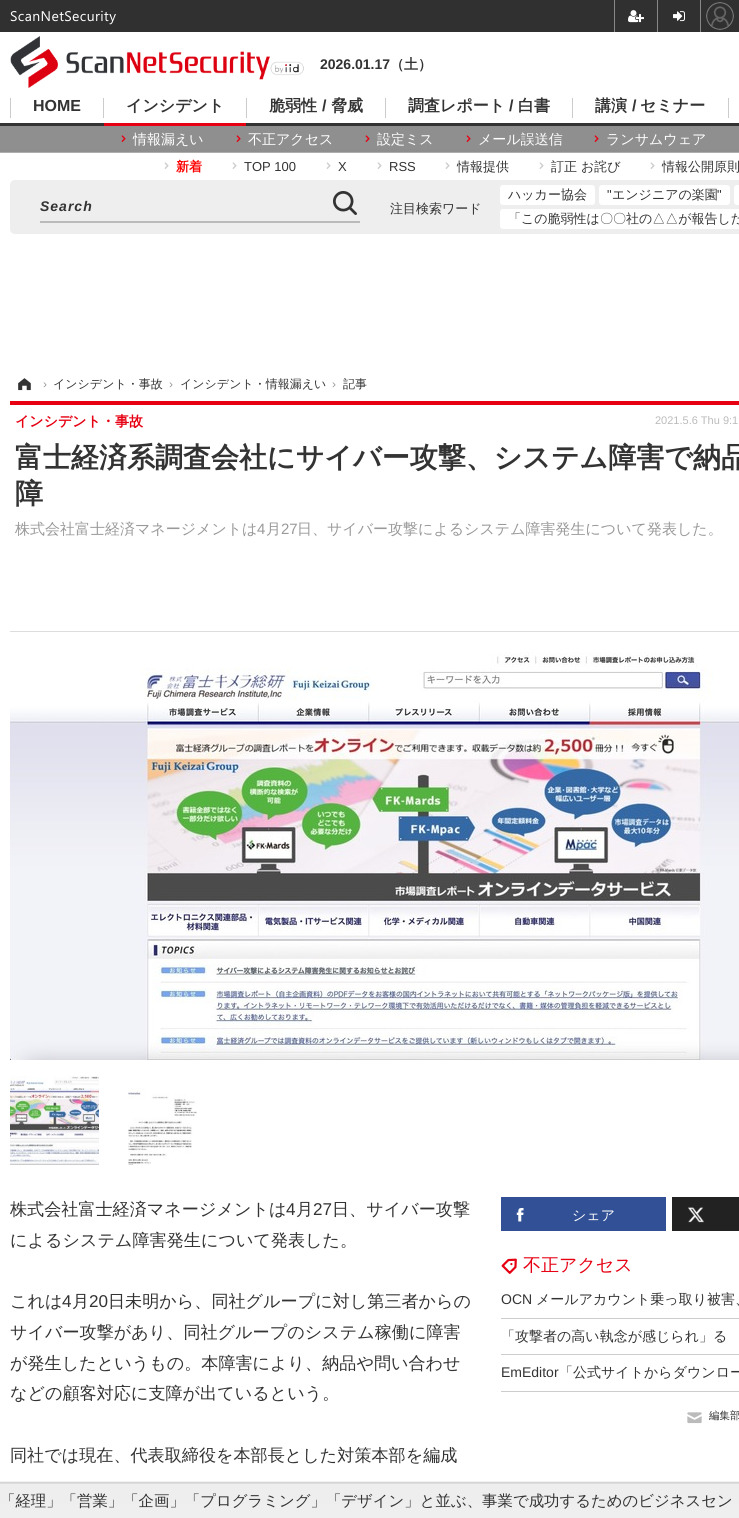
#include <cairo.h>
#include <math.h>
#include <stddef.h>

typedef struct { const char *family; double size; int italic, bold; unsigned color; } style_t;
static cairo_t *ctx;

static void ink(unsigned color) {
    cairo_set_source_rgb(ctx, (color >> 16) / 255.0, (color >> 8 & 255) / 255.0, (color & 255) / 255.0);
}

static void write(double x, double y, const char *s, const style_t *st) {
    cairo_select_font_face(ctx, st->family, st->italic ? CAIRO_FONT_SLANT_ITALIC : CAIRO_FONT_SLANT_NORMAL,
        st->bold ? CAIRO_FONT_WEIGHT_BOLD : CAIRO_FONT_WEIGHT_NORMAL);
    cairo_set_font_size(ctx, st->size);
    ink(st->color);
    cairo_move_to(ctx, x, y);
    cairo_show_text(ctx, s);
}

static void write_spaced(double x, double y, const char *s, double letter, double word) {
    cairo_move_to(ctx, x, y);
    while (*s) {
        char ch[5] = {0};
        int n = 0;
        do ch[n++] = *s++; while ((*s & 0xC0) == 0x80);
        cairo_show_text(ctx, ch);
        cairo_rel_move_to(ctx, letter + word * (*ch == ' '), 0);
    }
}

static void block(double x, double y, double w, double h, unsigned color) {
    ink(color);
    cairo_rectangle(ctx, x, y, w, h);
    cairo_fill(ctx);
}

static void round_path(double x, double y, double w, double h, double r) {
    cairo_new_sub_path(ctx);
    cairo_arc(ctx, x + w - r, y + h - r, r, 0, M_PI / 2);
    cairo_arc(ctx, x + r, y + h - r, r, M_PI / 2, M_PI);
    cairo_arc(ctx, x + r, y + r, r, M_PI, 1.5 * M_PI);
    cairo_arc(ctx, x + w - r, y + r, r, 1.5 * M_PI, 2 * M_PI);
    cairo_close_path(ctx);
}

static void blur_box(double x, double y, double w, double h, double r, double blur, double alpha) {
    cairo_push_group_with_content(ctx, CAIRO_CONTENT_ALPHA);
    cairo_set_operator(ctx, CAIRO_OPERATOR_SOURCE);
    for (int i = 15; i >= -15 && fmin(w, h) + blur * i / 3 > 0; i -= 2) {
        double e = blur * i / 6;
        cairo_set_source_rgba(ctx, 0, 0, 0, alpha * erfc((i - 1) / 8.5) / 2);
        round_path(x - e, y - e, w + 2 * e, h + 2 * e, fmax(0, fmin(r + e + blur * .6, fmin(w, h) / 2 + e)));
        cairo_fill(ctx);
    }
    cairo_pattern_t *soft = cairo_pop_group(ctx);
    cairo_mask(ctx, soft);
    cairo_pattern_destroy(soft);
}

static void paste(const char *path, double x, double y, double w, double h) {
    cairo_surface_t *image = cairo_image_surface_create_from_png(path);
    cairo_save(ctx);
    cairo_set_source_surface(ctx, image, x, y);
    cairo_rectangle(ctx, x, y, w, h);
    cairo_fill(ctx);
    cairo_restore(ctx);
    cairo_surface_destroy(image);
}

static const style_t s1 = {"Liberation Sans", 14, 0, 1, 0x333333};
static const style_t s2 = {"WenQuanYi Zen Hei", 14, 0, 1, 0x333333};
static const style_t s3 = {"Liberation Sans", 16, 0, 1, 0x333333};
static const style_t s4 = {"WenQuanYi Zen Hei", 16, 0, 1, 0x333333};
static const style_t s5 = {"WenQuanYi Zen Hei Medium", 14, 0, 0, 0xffffff};
static const style_t s6 = {"WenQuanYi Zen Hei", 13, 0, 1, 0xff0000};
static const style_t s7 = {"Liberation Sans", 13, 0, 0, 0x333333};
static const style_t s8 = {"WenQuanYi Zen Hei Medium", 13, 0, 0, 0x333333};
static const style_t s9 = {"Liberation Sans", 12, 0, 0, 0x999999};
static const style_t s10 = {"WenQuanYi Zen Hei Medium", 12, 0, 0, 0x333333};
static const style_t s11 = {"WenQuanYi Zen Hei", 14, 0, 1, 0xe60012};
static const style_t s12 = {"Liberation Sans", 11, 0, 0, 0xbbbbbb};
static const style_t s13 = {"WenQuanYi Zen Hei", 28, 0, 1, 0x333333};
static const style_t s14 = {"WenQuanYi Zen Hei Medium", 15, 0, 0, 0x999999};
static const style_t s15 = {"Liberation Sans", 15, 0, 0, 0x999999};
static const style_t s16 = {"WenQuanYi Zen Hei Medium", 17.1, 0, 0, 0x333333};
static const style_t s17 = {"Liberation Sans", 17.1, 0, 0, 0x333333};
static const style_t s18 = {"WenQuanYi Zen Hei Medium", 18, 0, 0, 0xe60012};
static const style_t s19 = {"Liberation Sans", 14, 0, 0, 0x333333};
static const style_t s20 = {"WenQuanYi Zen Hei Medium", 14, 0, 0, 0x333333};
static const style_t s21 = {"WenQuanYi Zen Hei Medium", 10.5, 0, 0, 0x333333};
static const style_t s22 = {"WenQuanYi Zen Hei Medium", 15.4, 0, 0, 0x333333};

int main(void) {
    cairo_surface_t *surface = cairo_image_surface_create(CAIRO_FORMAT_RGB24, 739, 1518);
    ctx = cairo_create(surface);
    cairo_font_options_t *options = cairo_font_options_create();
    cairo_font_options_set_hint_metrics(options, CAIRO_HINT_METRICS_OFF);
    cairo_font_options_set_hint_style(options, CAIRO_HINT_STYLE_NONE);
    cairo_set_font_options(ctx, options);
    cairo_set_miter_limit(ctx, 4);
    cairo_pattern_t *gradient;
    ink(0xffffff);
    cairo_paint(ctx);
    block(0, 0, 739, 32, 0x303030);
    cairo_select_font_face(ctx, "Segoe UI", CAIRO_FONT_SLANT_NORMAL, CAIRO_FONT_WEIGHT_NORMAL);
    cairo_set_font_size(ctx, 14);
    ink(0xffffff);
    write_spaced(10, 21, "ScanNetSecurity", 0.4, 0);
    block(614, 0, 1, 32, 0x888888);
    paste("pic1.png", 628, 10, 16, 13);
    block(700, 0, 1, 32, 0x888888);
    block(657, 0, 1, 32, 0x888888);
    paste("pic2.png", 673, 11, 12, 11);
    paste("pic3.png", 706, 2, 28, 28);
    paste("pic4.png", 10, 36, 294, 52);
    write(320, 69, "2026.01.17", &s1);
    write(390, 69, "（土）", &s2);
    paste("pic5.png", 0, 123, 739, 30);
    block(10, 98, 1, 20, 0xcccccc);
    write(33, 111, "HOME", &s3);
    block(246, 98, 1, 20, 0xcccccc);
    write(269, 111, "脆弱性", &s4);
    write(322, 111, "/", &s3);
    write(331, 111, "脅威", &s4);
    block(385, 98, 1, 20, 0xcccccc);
    write(408, 111, "調査レポート", &s4);
    write(509, 111, "/", &s3);
    write(518, 111, "白書", &s4);
    block(572, 98, 1, 20, 0xcccccc);
    write(595, 111, "講演", &s4);
    write(632, 111, "/", &s3);
    write(640, 111, "セミナー", &s4);
    block(728, 98, 1, 20, 0xcccccc);
    block(103, 98, 1, 20, 0xcccccc);
    write(126, 111, "インシデント", &s4);
    block(104, 123, 142, 3, 0xe60012);
    paste("pic6.png", 121, 135, 5, 7);
    write(133, 144, "情報漏えい", &s5);
    paste("pic6.png", 236, 135, 5, 7);
    write(248, 144, "不正アクセス", &s5);
    paste("pic6.png", 365, 135, 5, 7);
    write(377, 144, "設定ミス", &s5);
    paste("pic6.png", 466, 135, 5, 7);
    write(478, 144, "メール誤送信", &s5);
    paste("pic6.png", 594, 135, 5, 7);
    write(606, 144, "ランサムウェア", &s5);
    paste("pic7.png", 164, 162, 5, 7);
    write(176, 171, "新着", &s6);
    paste("pic7.png", 232, 162, 5, 7);
    write(244, 171, "TOP 100", &s7);
    paste("pic7.png", 326, 162, 5, 7);
    write(338, 171, "X", &s7);
    paste("pic7.png", 377, 162, 5, 7);
    write(389, 171, "RSS", &s7);
    paste("pic7.png", 445, 162, 5, 7);
    write(457, 171, "情報提供", &s8);
    paste("pic7.png", 539, 162, 5, 7);
    write(551, 171, "訂正 お詫び", &s8);
    paste("pic7.png", 650, 162, 5, 7);
    write(662, 171, "情報公開原則", &s8);
    ink(0xeeeeee);
    round_path(10, 180, 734, 54, 5);
    cairo_fill(ctx);
    block(40, 221, 320, 2, 0xbbbbbb);
    cairo_select_font_face(ctx, "Liberation Sans", CAIRO_FONT_SLANT_ITALIC, CAIRO_FONT_WEIGHT_BOLD);
    cairo_set_font_size(ctx, 14);
    ink(0x333333);
    write_spaced(40, 211, "Search", 1, 0);
    paste("pic8.png", 333, 191, 24, 24);
    write(390, 213, "注目検索ワード", &s8);
    ink(0xffffff);
    round_path(500, 185, 95, 20, 3);
    cairo_fill(ctx);
    write(508, 199, "ハッカー協会", &s8);
    ink(0xffffff);
    round_path(599, 185, 131, 20, 3);
    cairo_fill(ctx);
    write(607, 199, "\"", &s7);
    write(612, 199, "エンジニアの楽園", &s8);
    write(717, 199, "\"", &s7);
    ink(0xffffff);
    round_path(734, 185, 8, 20, 3);
    cairo_fill(ctx);
    round_path(500, 209, 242, 20, 3);
    cairo_fill(ctx);
    write(508, 223, "「この脆弱性は〇〇社の△△が報告した", &s8);
    paste("pic9.png", 18, 378, 13, 13);
    write(43, 388, "›", &s9);
    write(53, 388, "インシデント・事故", &s10);
    write(169, 388, "›", &s9);
    write(180, 388, "インシデント・情報漏えい", &s10);
    write(332, 388, "›", &s9);
    write(343, 388, "記事", &s10);
    block(10, 401, 729, 4, 0xe60012);
    write(15, 426, "インシデント・事故", &s11);
    write(655, 424, "2021.5.6 Thu 9:1", &s12);
    write(15, 467, "富士経済系調査会社にサイバー攻撃、システム障害で納品", &s13);
    write(15, 503, "障", &s13);
    write(15, 534, "株式会社富士経済マネージメントは", &s14);
    write(257, 534, "4", &s15);
    write(266, 534, "月", &s14);
    write(281, 534, "27", &s15);
    write(297, 534, "日、サイバー攻撃によるシステム障害発生について発表した。", &s14);
    block(10, 631, 729, 1, 0xdddddd);
    paste("pic10.png", 10, 652, 729, 408);
    paste("pic11.png", 10, 1076, 89, 89);
    paste("pic12.png", 128, 1088, 69, 77);
    write(10, 1215, "株式会社富士経済マネージメントは", &s16);
    write(286, 1215, "4", &s17);
    write(296, 1215, "月", &s16);
    write(313, 1215, "27", &s17);
    write(332, 1215, "日、サイバー攻撃", &s16);
    write(10, 1246, "によるシステム障害発生について発表した。", &s16);
    write(10, 1307, "これは", &s16);
    write(62, 1307, "4", &s17);
    write(72, 1307, "月", &s16);
    write(89, 1307, "20", &s17);
    write(108, 1307, "日未明から、同社グループに対し第三者からの", &s16);
    write(10, 1338, "サイバー攻撃があり、同社グループのシステム稼働に障害", &s16);
    write(10, 1369, "が発生したというもの。本障害により、納品や問い合わせ", &s16);
    write(10, 1399, "などの顧客対応に支障が出ているという。", &s16);
    write(10, 1461, "同社では現在、代表取締役を本部長とした対策本部を編成", &s16);
    block(501, 1197, 165, 34, 0x315096);
    paste("pic13.png", 516, 1208, 8, 14);
    write(572, 1220, "シェア", &s5);
    block(672, 1197, 67, 34, 0x222222);
    paste("pic14.png", 688, 1207, 16, 16);
    paste("pic15.png", 501, 1258, 16, 16);
    write(523, 1271, "不正アクセス", &s18);
    block(501, 1318, 238, 1, 0xcccccc);
    write(501, 1304, "OCN", &s19);
    write(536, 1304, "メールアカウント乗っ取り被害、", &s20);
    block(501, 1354, 238, 1, 0xcccccc);
    write(501, 1341, "「攻撃者の高い執念が感じられ」る", &s20);
    block(501, 1391, 238, 1, 0xcccccc);
    write(501, 1377, "EmEditor", &s19);
    write(559, 1377, "「公式サイトからダウンロー", &s20);
    paste("pic16.png", 687, 1412, 15, 12);
    write(709, 1419, "編集部", &s21);
    ink(0x000000);
    blur_box(-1, 1482, 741, 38, 0, 0.5, 0.2);
    gradient = cairo_pattern_create_linear(370, 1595, 370, 1484);
    cairo_pattern_add_color_stop_rgba(gradient, 0, 1, 1, 1, 1);
    cairo_pattern_add_color_stop_rgba(gradient, 0.68, 1, 1, 1, 1);
    cairo_pattern_add_color_stop_rgba(gradient, 0.68, 0.937, 0.937, 0.937, 1);
    cairo_pattern_add_color_stop_rgba(gradient, 1, 0.933, 0.933, 0.933, 1);
    cairo_set_source(ctx, gradient);
    cairo_pattern_destroy(gradient);
    cairo_rectangle(ctx, 0, 1484, 739, 34);
    cairo_fill(ctx);
    block(0, 1483, 739, 1, 0xdddddd);
    write(0, 1506, "「経理」「営業」「企画」「プログラミング」「デザイン」と並ぶ、事業で成功するためのビジネスセン", &s22);
    cairo_surface_write_to_png(surface, "screenshot.png");
    cairo_font_options_destroy(options);
    cairo_destroy(ctx);
    cairo_surface_destroy(surface);
    return 0;
}
